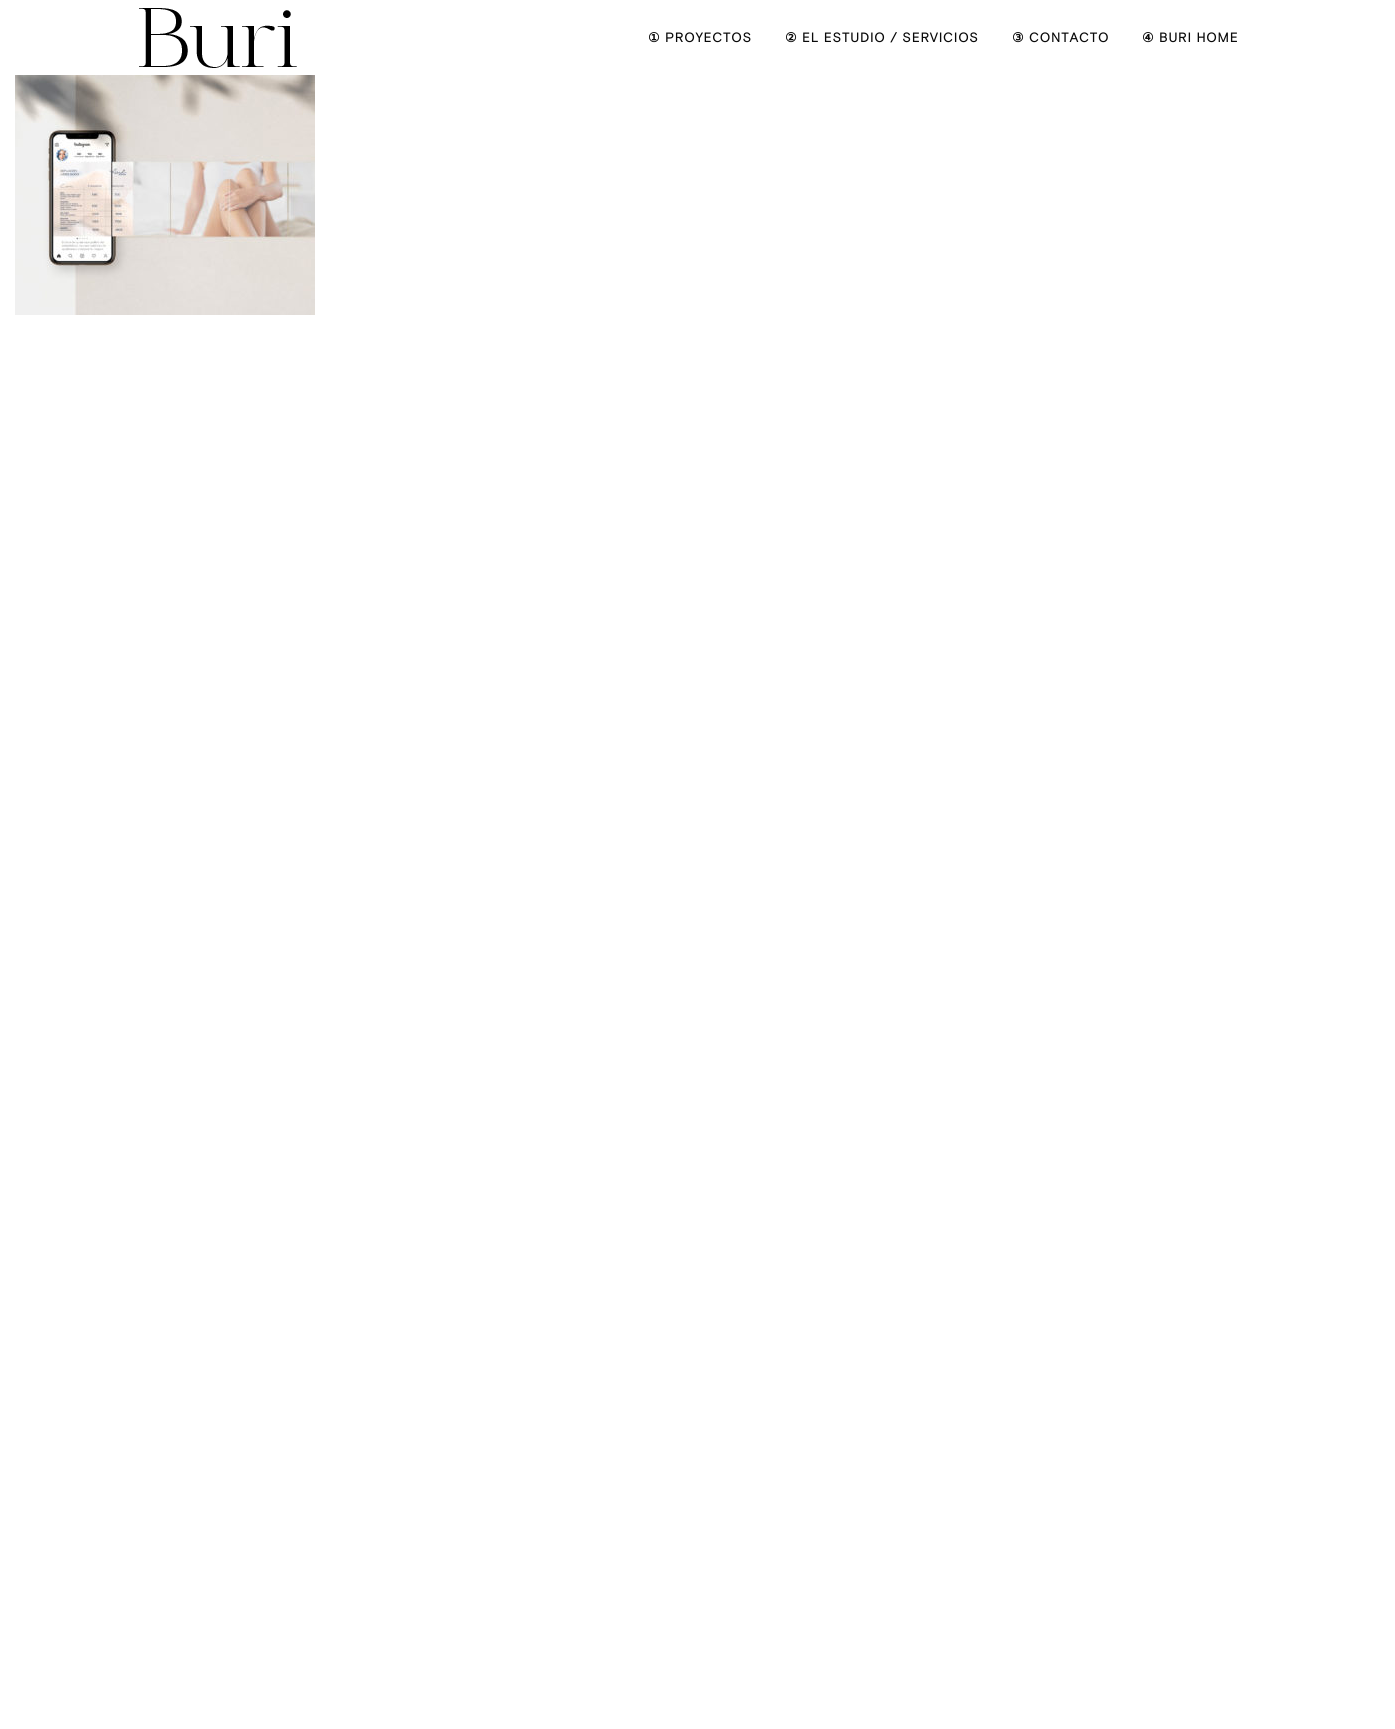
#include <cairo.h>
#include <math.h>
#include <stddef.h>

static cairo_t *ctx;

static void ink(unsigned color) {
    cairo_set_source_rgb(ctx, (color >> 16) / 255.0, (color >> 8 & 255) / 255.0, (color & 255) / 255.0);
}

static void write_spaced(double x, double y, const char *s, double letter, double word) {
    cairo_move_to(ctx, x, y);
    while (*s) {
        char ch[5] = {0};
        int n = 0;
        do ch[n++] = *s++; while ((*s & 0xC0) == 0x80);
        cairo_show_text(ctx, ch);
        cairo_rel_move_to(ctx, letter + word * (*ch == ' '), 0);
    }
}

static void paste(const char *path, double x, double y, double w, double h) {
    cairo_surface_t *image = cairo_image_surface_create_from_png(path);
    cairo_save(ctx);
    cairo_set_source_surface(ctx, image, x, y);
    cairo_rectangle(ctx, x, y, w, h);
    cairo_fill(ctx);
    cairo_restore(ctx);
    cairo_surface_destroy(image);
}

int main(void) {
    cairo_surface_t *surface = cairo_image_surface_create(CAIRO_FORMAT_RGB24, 1395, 1729);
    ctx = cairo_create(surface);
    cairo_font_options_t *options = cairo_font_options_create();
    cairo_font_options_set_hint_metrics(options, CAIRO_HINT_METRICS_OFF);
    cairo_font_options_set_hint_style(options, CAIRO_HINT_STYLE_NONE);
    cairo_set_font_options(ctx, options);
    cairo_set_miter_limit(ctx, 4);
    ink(0xffffff);
    cairo_paint(ctx);
    paste("pic1.png", 139, 8, 158, 60);
    cairo_select_font_face(ctx, "DejaVu Sans", CAIRO_FONT_SLANT_NORMAL, CAIRO_FONT_WEIGHT_BOLD);
    cairo_set_font_size(ctx, 13);
    ink(0x0a0a0a);
    write_spaced(648, 42, "①", 1, 0);
    cairo_select_font_face(ctx, "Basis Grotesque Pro", CAIRO_FONT_SLANT_NORMAL, CAIRO_FONT_WEIGHT_BOLD);
    write_spaced(665, 42, "PROYECTOS", 1, 0);
    cairo_select_font_face(ctx, "DejaVu Sans", CAIRO_FONT_SLANT_NORMAL, CAIRO_FONT_WEIGHT_BOLD);
    write_spaced(785, 42, "②", 1, 0);
    cairo_select_font_face(ctx, "Basis Grotesque Pro", CAIRO_FONT_SLANT_NORMAL, CAIRO_FONT_WEIGHT_BOLD);
    write_spaced(802, 42, "EL ESTUDIO / SERVICIOS", 1, 0);
    cairo_select_font_face(ctx, "DejaVu Sans", CAIRO_FONT_SLANT_NORMAL, CAIRO_FONT_WEIGHT_BOLD);
    write_spaced(1012, 42, "③", 1, 0);
    cairo_select_font_face(ctx, "Basis Grotesque Pro", CAIRO_FONT_SLANT_NORMAL, CAIRO_FONT_WEIGHT_BOLD);
    write_spaced(1029, 42, "CONTACTO", 1, 0);
    cairo_select_font_face(ctx, "DejaVu Sans", CAIRO_FONT_SLANT_NORMAL, CAIRO_FONT_WEIGHT_BOLD);
    write_spaced(1142, 42, "④", 1, 0);
    cairo_select_font_face(ctx, "Basis Grotesque Pro", CAIRO_FONT_SLANT_NORMAL, CAIRO_FONT_WEIGHT_BOLD);
    write_spaced(1159, 42, "BURI HOME", 1, 0);
    paste("pic2.png", 15, 75, 300, 240);
    cairo_surface_write_to_png(surface, "screenshot.png");
    cairo_font_options_destroy(options);
    cairo_destroy(ctx);
    cairo_surface_destroy(surface);
    return 0;
}
